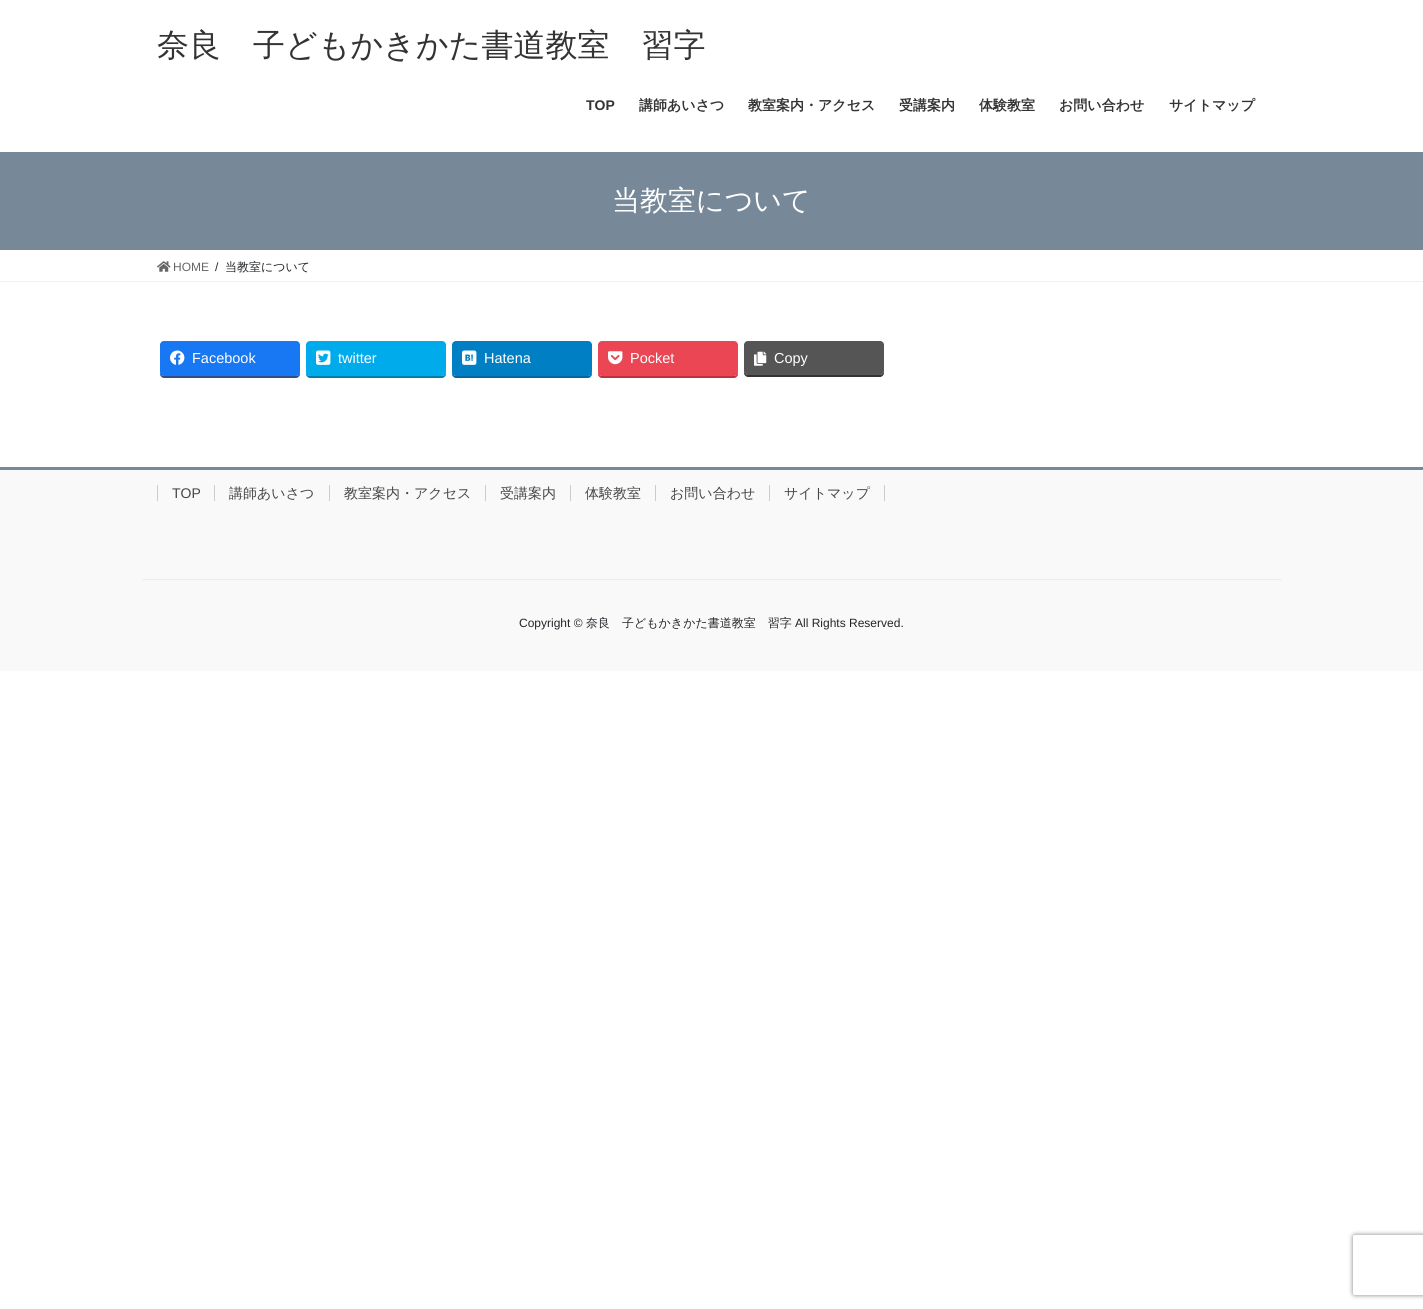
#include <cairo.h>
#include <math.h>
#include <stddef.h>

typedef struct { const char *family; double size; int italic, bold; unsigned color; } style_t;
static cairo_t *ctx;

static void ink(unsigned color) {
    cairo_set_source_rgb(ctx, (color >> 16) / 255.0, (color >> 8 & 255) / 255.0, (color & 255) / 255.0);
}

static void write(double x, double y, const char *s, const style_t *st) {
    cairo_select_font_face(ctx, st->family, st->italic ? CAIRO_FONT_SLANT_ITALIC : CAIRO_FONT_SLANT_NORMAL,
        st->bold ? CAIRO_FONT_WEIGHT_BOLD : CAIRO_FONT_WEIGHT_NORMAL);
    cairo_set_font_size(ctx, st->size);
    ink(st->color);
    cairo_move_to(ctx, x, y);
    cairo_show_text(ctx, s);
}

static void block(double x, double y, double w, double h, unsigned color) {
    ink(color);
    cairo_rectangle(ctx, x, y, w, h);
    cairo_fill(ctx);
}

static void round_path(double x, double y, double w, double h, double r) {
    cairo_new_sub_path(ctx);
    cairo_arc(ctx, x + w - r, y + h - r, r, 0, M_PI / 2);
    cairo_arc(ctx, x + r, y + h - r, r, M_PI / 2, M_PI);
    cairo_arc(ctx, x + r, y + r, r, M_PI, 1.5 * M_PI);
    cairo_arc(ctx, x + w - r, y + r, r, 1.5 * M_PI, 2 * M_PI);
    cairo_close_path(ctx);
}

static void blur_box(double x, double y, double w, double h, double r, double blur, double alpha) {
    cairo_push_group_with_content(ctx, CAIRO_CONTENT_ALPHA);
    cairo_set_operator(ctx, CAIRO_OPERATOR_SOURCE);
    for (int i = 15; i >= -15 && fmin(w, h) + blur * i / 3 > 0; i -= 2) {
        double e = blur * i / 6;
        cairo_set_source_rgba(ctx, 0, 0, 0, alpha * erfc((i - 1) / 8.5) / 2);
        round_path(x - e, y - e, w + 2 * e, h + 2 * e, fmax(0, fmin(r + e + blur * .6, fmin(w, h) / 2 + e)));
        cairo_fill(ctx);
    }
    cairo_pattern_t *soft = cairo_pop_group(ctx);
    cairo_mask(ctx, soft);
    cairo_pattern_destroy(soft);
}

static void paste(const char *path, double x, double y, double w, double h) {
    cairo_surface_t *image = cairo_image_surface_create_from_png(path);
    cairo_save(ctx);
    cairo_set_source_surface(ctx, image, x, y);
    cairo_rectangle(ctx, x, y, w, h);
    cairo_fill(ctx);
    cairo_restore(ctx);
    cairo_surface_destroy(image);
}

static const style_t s1 = {"WenQuanYi Zen Hei Medium", 32, 0, 0, 0x333333};
static const style_t s2 = {"Liberation Sans", 14, 0, 1, 0x333333};
static const style_t s3 = {"WenQuanYi Zen Hei", 14, 0, 1, 0x333333};
static const style_t s4 = {"WenQuanYi Zen Hei Medium", 28, 0, 0, 0xffffff};
static const style_t s5 = {"Liberation Sans", 12, 0, 0, 0x666666};
static const style_t s6 = {"Liberation Sans", 12, 0, 0, 0x212529};
static const style_t s7 = {"WenQuanYi Zen Hei Medium", 12, 0, 0, 0x212529};
static const style_t s8 = {"Liberation Sans", 14.5, 0, 0, 0xffffff};
static const style_t s9 = {"Liberation Sans", 14, 0, 0, 0x464646};
static const style_t s10 = {"WenQuanYi Zen Hei Medium", 14, 0, 0, 0x464646};

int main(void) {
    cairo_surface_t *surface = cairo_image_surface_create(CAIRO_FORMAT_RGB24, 1423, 1309);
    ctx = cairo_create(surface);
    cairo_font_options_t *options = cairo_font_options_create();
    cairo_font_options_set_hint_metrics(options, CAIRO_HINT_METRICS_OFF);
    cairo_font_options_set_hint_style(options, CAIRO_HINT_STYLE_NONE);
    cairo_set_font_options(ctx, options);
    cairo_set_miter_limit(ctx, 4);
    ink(0xffffff);
    cairo_paint(ctx);
    write(157, 56, "奈良　子どもかきかた書道教室　習字", &s1);
    write(586, 110, "TOP", &s2);
    write(639, 110, "講師あいさつ", &s3);
    write(748, 110, "教室案内・アクセス", &s3);
    write(899, 110, "受講案内", &s3);
    write(979, 110, "体験教室", &s3);
    write(1059, 110, "お問い合わせ", &s3);
    write(1169, 110, "サイトマップ", &s3);
    block(0, 152, 1423, 98, 0x778899);
    write(612, 210, "当教室について", &s4);
    block(0, 281, 1423, 1, 0xf2f2f2);
    paste("pic1.png", 157, 261, 14, 11);
    write(173, 271, "HOME", &s5);
    write(215, 271, "/", &s6);
    write(225, 271, "当教室について", &s7);
    ink(0x344e84);
    cairo_new_path(ctx);
    cairo_move_to(ctx, 160, 372);
    cairo_line_to(ctx, 160, 374);
    cairo_curve_to(ctx, 160, 376, 162, 378, 164, 378);
    cairo_line_to(ctx, 296, 378);
    cairo_curve_to(ctx, 298, 378, 300, 376, 300, 374);
    cairo_line_to(ctx, 300, 372);
    cairo_curve_to(ctx, 300, 374, 298, 376, 296, 376);
    cairo_line_to(ctx, 164, 376);
    cairo_curve_to(ctx, 162, 376, 160, 374, 160, 372);
    cairo_close_path(ctx);
    cairo_fill(ctx);
    ink(0x1877f2);
    round_path(160, 341, 140, 35, 4);
    cairo_fill(ctx);
    paste("pic2.png", 170, 350, 15, 15);
    write(192, 363, "Facebook", &s8);
    ink(0x007eaa);
    cairo_new_path(ctx);
    cairo_move_to(ctx, 306, 372);
    cairo_line_to(ctx, 306, 374);
    cairo_curve_to(ctx, 306, 376, 308, 378, 310, 378);
    cairo_line_to(ctx, 442, 378);
    cairo_curve_to(ctx, 444, 378, 446, 376, 446, 374);
    cairo_line_to(ctx, 446, 372);
    cairo_curve_to(ctx, 446, 374, 444, 376, 442, 376);
    cairo_line_to(ctx, 310, 376);
    cairo_curve_to(ctx, 308, 376, 306, 374, 306, 372);
    cairo_close_path(ctx);
    cairo_fill(ctx);
    ink(0x00abec);
    round_path(306, 341, 140, 35, 4);
    cairo_fill(ctx);
    paste("pic3.png", 316, 350, 15, 15);
    write(338, 363, "twitter", &s8);
    ink(0x00679f);
    cairo_new_path(ctx);
    cairo_move_to(ctx, 452, 372);
    cairo_line_to(ctx, 452, 374);
    cairo_curve_to(ctx, 452, 376, 454, 378, 456, 378);
    cairo_line_to(ctx, 588, 378);
    cairo_curve_to(ctx, 590, 378, 592, 376, 592, 374);
    cairo_line_to(ctx, 592, 372);
    cairo_curve_to(ctx, 592, 374, 590, 376, 588, 376);
    cairo_line_to(ctx, 456, 376);
    cairo_curve_to(ctx, 454, 376, 452, 374, 452, 372);
    cairo_close_path(ctx);
    cairo_fill(ctx);
    ink(0x007fc5);
    round_path(452, 341, 140, 35, 4);
    cairo_fill(ctx);
    paste("pic4.png", 462, 350, 15, 15);
    write(484, 363, "Hatena", &s8);
    ink(0xc1303c);
    cairo_new_path(ctx);
    cairo_move_to(ctx, 598, 372);
    cairo_line_to(ctx, 598, 374);
    cairo_curve_to(ctx, 598, 376, 600, 378, 602, 378);
    cairo_line_to(ctx, 734, 378);
    cairo_curve_to(ctx, 736, 378, 738, 376, 738, 374);
    cairo_line_to(ctx, 738, 372);
    cairo_curve_to(ctx, 738, 374, 736, 376, 734, 376);
    cairo_line_to(ctx, 602, 376);
    cairo_curve_to(ctx, 600, 376, 598, 374, 598, 372);
    cairo_close_path(ctx);
    cairo_fill(ctx);
    ink(0xea4654);
    round_path(598, 341, 140, 35, 4);
    cairo_fill(ctx);
    paste("pic5.png", 608, 351, 15, 14);
    write(630, 363, "Pocket", &s8);
    ink(0x333333);
    cairo_new_path(ctx);
    cairo_move_to(ctx, 744, 371);
    cairo_line_to(ctx, 744, 373);
    cairo_curve_to(ctx, 744, 375, 746, 377, 748, 377);
    cairo_line_to(ctx, 880, 377);
    cairo_curve_to(ctx, 882, 377, 884, 375, 884, 373);
    cairo_line_to(ctx, 884, 371);
    cairo_curve_to(ctx, 884, 373, 882, 375, 880, 375);
    cairo_line_to(ctx, 748, 375);
    cairo_curve_to(ctx, 746, 375, 744, 373, 744, 371);
    cairo_close_path(ctx);
    cairo_fill(ctx);
    ink(0x555555);
    round_path(744, 341, 140, 34, 4);
    cairo_fill(ctx);
    paste("pic6.png", 754, 351, 13, 15);
    write(774, 363, "Copy", &s8);
    block(0, 470, 1423, 201, 0xf9f9f9);
    block(0, 467, 1423, 3, 0x778899);
    write(172, 498, "TOP", &s9);
    block(157, 485, 1, 16, 0xcccccc);
    write(229, 498, "講師あいさつ", &s10);
    block(214, 485, 1, 16, 0xcccccc);
    write(344, 498, "教室案内・アクセス", &s10);
    block(329, 485, 1, 16, 0xcccccc);
    write(500, 498, "受講案内", &s10);
    block(485, 485, 1, 16, 0xcccccc);
    write(585, 498, "体験教室", &s10);
    block(570, 485, 1, 16, 0xcccccc);
    write(670, 498, "お問い合わせ", &s10);
    block(655, 485, 1, 16, 0xcccccc);
    write(784, 498, "サイトマップ", &s10);
    block(884, 485, 1, 16, 0xcccccc);
    block(769, 485, 1, 16, 0xcccccc);
    block(142, 579, 1140, 1, 0xededed);
    write(519, 627, "Copyright ©", &s6);
    write(586, 627, "奈良　子どもかきかた書道教室　習字", &s7);
    write(795, 627, "All Rights Reserved.", &s6);
    cairo_save(ctx);
    cairo_set_fill_rule(ctx, CAIRO_FILL_RULE_EVEN_ODD);
    cairo_new_path(ctx);
    cairo_move_to(ctx, 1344, 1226);
    cairo_line_to(ctx, 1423, 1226);
    cairo_line_to(ctx, 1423, 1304);
    cairo_line_to(ctx, 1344, 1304);
    cairo_close_path(ctx);
    cairo_move_to(ctx, 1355, 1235);
    cairo_line_to(ctx, 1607, 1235);
    cairo_curve_to(ctx, 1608, 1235, 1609, 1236, 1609, 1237);
    cairo_line_to(ctx, 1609, 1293);
    cairo_curve_to(ctx, 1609, 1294, 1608, 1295, 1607, 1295);
    cairo_line_to(ctx, 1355, 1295);
    cairo_curve_to(ctx, 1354, 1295, 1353, 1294, 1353, 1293);
    cairo_line_to(ctx, 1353, 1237);
    cairo_curve_to(ctx, 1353, 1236, 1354, 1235, 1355, 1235);
    cairo_close_path(ctx);
    cairo_clip(ctx);
    ink(0x808080);
    blur_box(1353, 1235, 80, 60, 2, 2.5, 1);
    cairo_restore(ctx);
    cairo_surface_write_to_png(surface, "screenshot.png");
    cairo_font_options_destroy(options);
    cairo_destroy(ctx);
    cairo_surface_destroy(surface);
    return 0;
}
